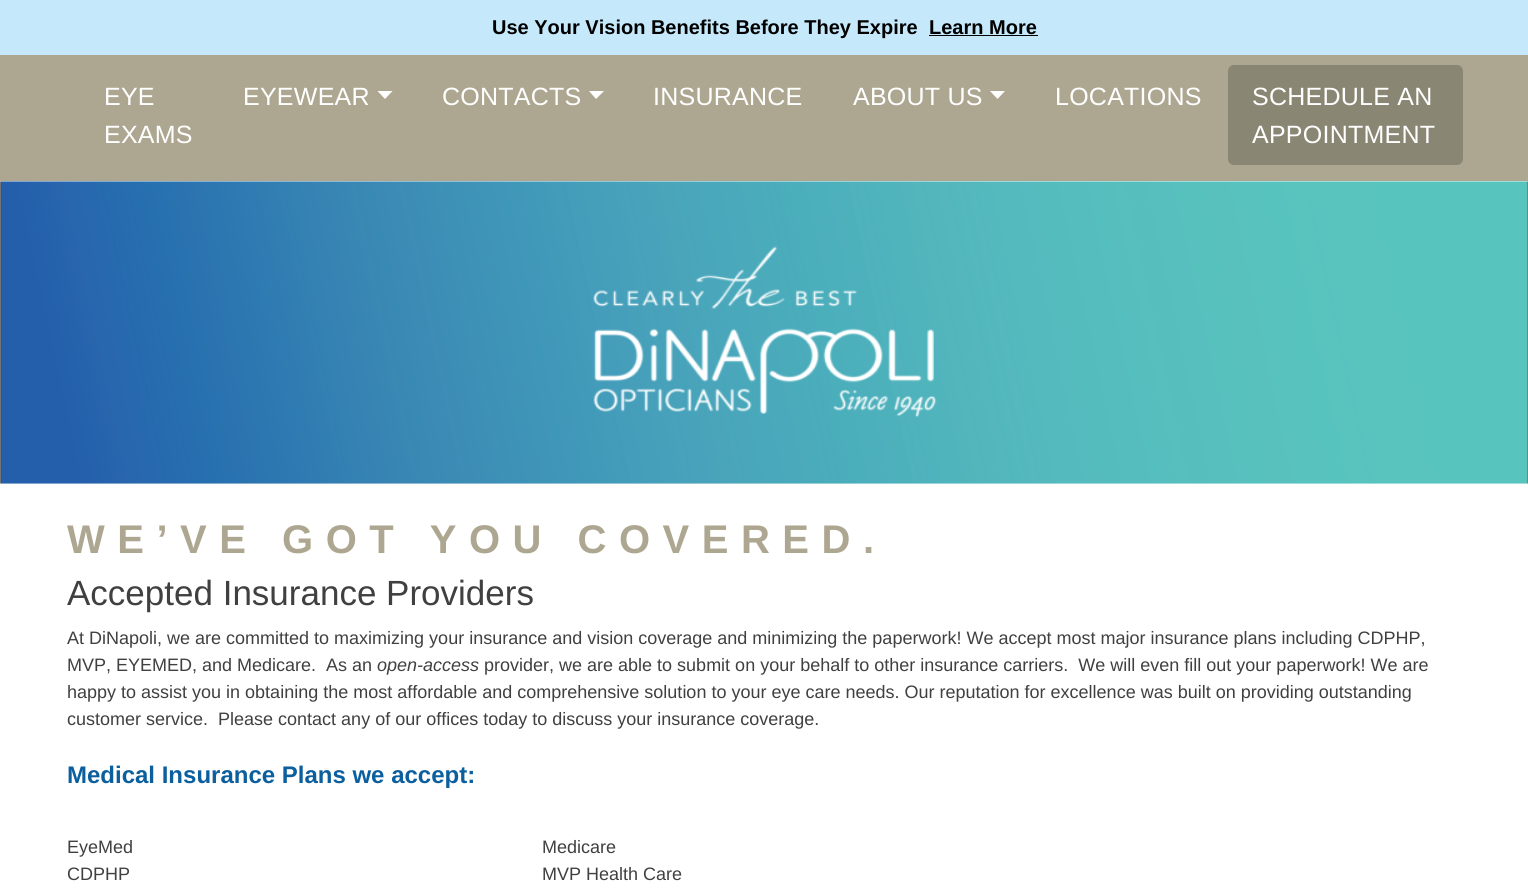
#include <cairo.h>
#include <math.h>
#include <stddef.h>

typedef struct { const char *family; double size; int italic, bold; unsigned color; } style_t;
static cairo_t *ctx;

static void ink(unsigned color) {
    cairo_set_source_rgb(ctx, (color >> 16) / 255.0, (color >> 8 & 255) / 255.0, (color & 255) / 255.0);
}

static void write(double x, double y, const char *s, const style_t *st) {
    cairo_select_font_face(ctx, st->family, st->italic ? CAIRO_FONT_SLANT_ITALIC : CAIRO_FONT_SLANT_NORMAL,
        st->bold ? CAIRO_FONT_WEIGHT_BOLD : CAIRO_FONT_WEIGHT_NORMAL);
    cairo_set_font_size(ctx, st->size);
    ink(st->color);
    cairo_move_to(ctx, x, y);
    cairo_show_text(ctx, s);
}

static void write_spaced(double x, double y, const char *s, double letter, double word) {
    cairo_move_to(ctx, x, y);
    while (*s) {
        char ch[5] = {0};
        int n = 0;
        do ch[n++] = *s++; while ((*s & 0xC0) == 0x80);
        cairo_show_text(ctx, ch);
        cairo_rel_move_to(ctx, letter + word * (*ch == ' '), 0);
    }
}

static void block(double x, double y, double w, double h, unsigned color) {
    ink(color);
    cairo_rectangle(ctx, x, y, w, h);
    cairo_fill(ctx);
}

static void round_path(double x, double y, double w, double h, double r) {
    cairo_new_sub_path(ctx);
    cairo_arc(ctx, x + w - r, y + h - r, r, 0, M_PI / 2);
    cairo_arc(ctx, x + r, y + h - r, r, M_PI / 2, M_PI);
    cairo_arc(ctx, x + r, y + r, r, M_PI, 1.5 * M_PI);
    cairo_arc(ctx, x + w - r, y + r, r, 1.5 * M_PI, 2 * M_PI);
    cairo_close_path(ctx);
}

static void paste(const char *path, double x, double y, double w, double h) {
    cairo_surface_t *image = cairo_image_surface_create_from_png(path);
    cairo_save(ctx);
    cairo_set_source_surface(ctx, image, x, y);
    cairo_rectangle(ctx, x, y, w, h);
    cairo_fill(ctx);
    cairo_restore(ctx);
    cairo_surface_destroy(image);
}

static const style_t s1 = {"Liberation Sans", 20, 0, 1, 0x000000};
static const style_t s2 = {"Liberation Sans", 35, 0, 0, 0x404040};
static const style_t s3 = {"Liberation Sans", 18, 0, 0, 0x404040};
static const style_t s4 = {"Liberation Sans", 18, 1, 0, 0x404040};
static const style_t s5 = {"Liberation Sans", 24, 0, 1, 0x0b5f9e};

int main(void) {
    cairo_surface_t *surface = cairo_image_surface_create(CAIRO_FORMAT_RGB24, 1528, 892);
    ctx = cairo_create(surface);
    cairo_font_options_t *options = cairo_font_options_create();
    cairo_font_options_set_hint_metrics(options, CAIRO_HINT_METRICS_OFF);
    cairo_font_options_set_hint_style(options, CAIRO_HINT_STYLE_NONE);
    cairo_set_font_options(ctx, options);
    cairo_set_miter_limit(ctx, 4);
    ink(0xffffff);
    cairo_paint(ctx);
    block(0, 0, 1528, 55, 0xc5e9fa);
    write(492, 34, "Use Your Vision Benefits Before They Expire", &s1);
    write(929, 34, "Learn More", &s1);
    block(929, 35, 109, 1, 0x000000);
    block(0, 55, 1528, 126, 0xada791);
    cairo_select_font_face(ctx, "Liberation Sans", CAIRO_FONT_SLANT_NORMAL, CAIRO_FONT_WEIGHT_NORMAL);
    cairo_set_font_size(ctx, 25);
    ink(0xffffff);
    write_spaced(104, 105, "EYE", 0.25, 0);
    write_spaced(104, 143, "EXAMS", 0.25, 0);
    write_spaced(243, 105, "EYEWEAR", 0.25, 0);
    cairo_new_path(ctx);
    cairo_move_to(ctx, 377.5, 91);
    cairo_line_to(ctx, 392.5, 91);
    cairo_line_to(ctx, 385, 99);
    cairo_close_path(ctx);
    cairo_fill(ctx);
    write_spaced(442, 105, "CONTACTS", 0.25, 0);
    cairo_new_path(ctx);
    cairo_move_to(ctx, 589, 91);
    cairo_line_to(ctx, 604, 91);
    cairo_line_to(ctx, 596, 99);
    cairo_close_path(ctx);
    cairo_fill(ctx);
    write_spaced(653, 105, "INSURANCE", 0.25, 0);
    write_spaced(853, 105, "ABOUT US", 0.25, 0);
    cairo_new_path(ctx);
    cairo_move_to(ctx, 990, 91);
    cairo_line_to(ctx, 1005, 91);
    cairo_line_to(ctx, 997.5, 99);
    cairo_close_path(ctx);
    cairo_fill(ctx);
    write_spaced(1055, 105, "LOCATIONS", 0.25, 0);
    ink(0x8a8674);
    round_path(1228, 65, 235, 100, 6);
    cairo_fill(ctx);
    ink(0xffffff);
    write_spaced(1252, 105, "SCHEDULE AN", 0.25, 0);
    write_spaced(1252, 143, "APPOINTMENT", 0.25, 0);
    paste("pic1.png", 0, 181, 1528, 303);
    paste("pic2.png", 593, 246, 344, 172);
    cairo_select_font_face(ctx, "Liberation Sans", CAIRO_FONT_SLANT_NORMAL, CAIRO_FONT_WEIGHT_BOLD);
    cairo_set_font_size(ctx, 40);
    ink(0xada791);
    write_spaced(67, 553, "WE’VE GOT YOU COVERED.", 12.5, 0);
    write(67, 605, "Accepted Insurance Providers", &s2);
    write(67, 644, "At DiNapoli, we are committed to maximizing your insurance and vision coverage and minimizing the paperwork! We accept most major insurance plans including CDPHP,", &s3);
    write(67, 671, "MVP, EYEMED, and Medicare.  As an", &s3);
    write(377, 671, "open-access", &s4);
    write(484, 671, "provider, we are able to submit on your behalf to other insurance carriers.  We will even fill out your paperwork! We are", &s3);
    write(67, 698, "happy to assist you in obtaining the most affordable and comprehensive solution to your eye care needs. Our reputation for excellence was built on providing outstanding", &s3);
    write(67, 725, "customer service.  Please contact any of our offices today to discuss your insurance coverage.", &s3);
    write(67, 783, "Medical Insurance Plans we accept:", &s5);
    write(67, 853, "EyeMed", &s3);
    write(67, 880, "CDPHP", &s3);
    write(542, 853, "Medicare", &s3);
    write(542, 880, "MVP Health Care", &s3);
    cairo_surface_write_to_png(surface, "screenshot.png");
    cairo_font_options_destroy(options);
    cairo_destroy(ctx);
    cairo_surface_destroy(surface);
    return 0;
}
